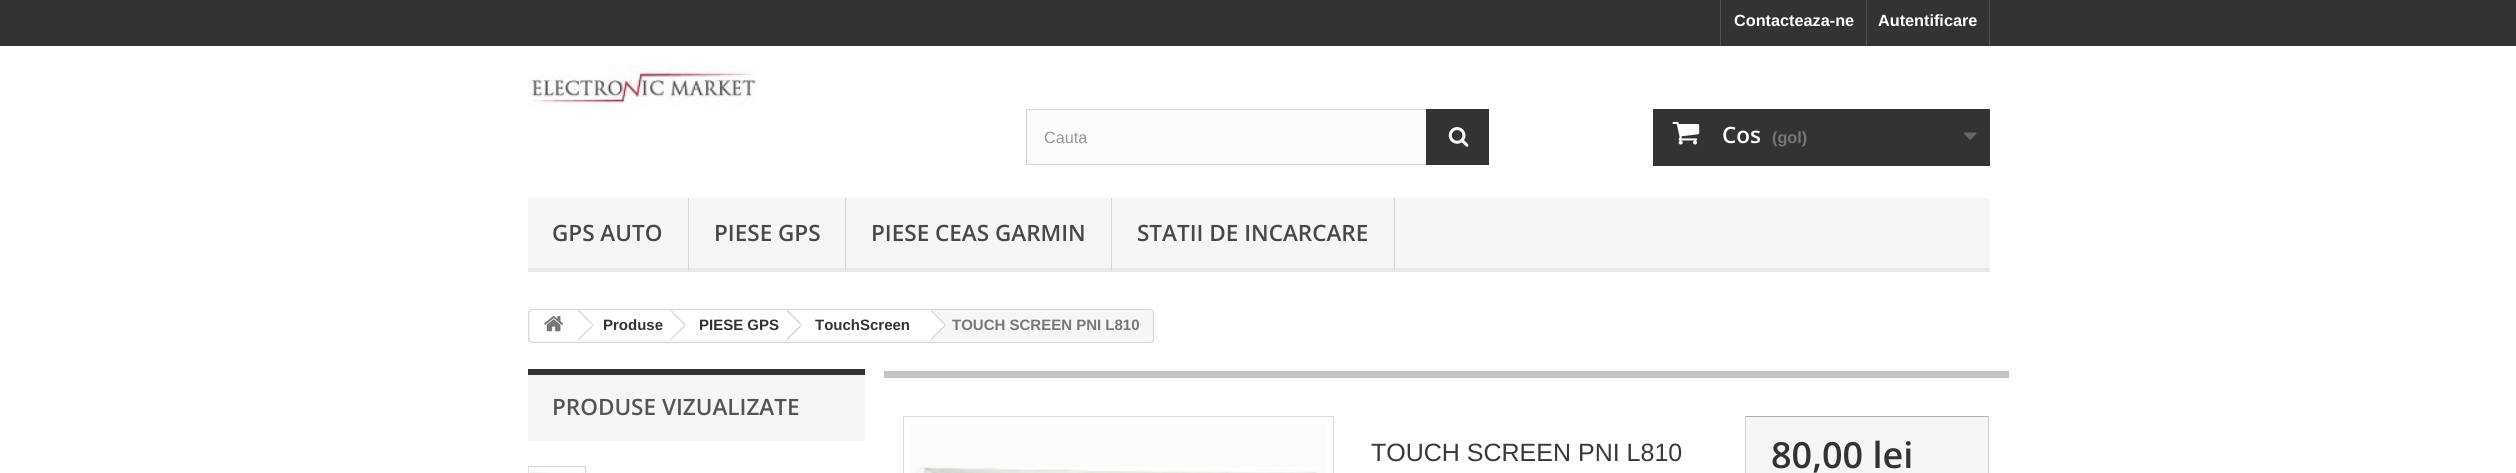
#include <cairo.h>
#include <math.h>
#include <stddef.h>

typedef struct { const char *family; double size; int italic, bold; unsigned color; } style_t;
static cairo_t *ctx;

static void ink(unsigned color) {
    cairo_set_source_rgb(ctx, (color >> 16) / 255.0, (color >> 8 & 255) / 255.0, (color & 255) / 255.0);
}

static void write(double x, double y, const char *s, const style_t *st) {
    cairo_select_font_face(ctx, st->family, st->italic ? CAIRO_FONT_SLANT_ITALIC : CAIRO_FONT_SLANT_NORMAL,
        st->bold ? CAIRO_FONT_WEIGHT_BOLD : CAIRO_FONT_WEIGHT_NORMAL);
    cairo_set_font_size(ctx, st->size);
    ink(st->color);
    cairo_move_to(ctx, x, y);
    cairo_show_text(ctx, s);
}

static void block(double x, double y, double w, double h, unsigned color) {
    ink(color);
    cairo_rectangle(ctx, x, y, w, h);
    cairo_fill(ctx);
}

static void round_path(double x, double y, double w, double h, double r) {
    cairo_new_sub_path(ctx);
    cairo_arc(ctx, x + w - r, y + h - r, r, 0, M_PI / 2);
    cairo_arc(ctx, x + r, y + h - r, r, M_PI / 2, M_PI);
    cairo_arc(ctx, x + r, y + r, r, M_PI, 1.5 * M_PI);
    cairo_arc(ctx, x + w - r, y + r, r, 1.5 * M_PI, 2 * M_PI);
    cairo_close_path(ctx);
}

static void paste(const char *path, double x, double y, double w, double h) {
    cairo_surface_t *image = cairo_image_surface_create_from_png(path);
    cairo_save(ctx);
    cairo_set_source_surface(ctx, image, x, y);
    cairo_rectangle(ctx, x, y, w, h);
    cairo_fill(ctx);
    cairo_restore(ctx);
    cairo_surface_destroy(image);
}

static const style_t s1 = {"Liberation Sans", 16.25, 0, 1, 0xffffff};
static const style_t s2 = {"Liberation Sans", 16.25, 0, 0, 0x999999};
static const style_t s3 = {"Open Sans SemiBold", 22.5, 0, 0, 0xffffff};
static const style_t s4 = {"Liberation Sans", 16.25, 0, 1, 0x777777};
static const style_t s5 = {"Open Sans SemiBold", 22.5, 0, 0, 0x484848};
static const style_t s6 = {"Liberation Sans", 15, 0, 1, 0x333333};
static const style_t s7 = {"Liberation Sans", 15, 0, 1, 0x777777};
static const style_t s8 = {"Open Sans SemiBold", 22.5, 0, 0, 0x555454};
static const style_t s9 = {"Liberation Sans", 25, 0, 0, 0x3a3939};
static const style_t s10 = {"Open Sans SemiBold", 36, 0, 0, 0x333333};

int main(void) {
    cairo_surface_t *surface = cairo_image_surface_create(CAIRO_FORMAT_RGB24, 2516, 473);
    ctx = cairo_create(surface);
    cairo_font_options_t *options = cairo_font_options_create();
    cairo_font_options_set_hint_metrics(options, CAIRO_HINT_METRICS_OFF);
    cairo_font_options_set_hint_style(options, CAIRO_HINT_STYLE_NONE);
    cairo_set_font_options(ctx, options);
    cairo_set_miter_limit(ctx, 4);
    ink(0xffffff);
    cairo_paint(ctx);
    block(0, 0, 2516, 46, 0x333333);
    block(1720, 0, 1, 46, 0x515151);
    write(1734, 26, "Contacteaza-ne", &s1);
    block(1989, 0, 1, 46, 0x515151);
    block(1866, 0, 1, 46, 0x515151);
    write(1878, 26, "Autentificare", &s1);
    paste("pic1.png", 527, 65, 229, 41);
    block(1027, 110, 399, 54, 0xfbfbfb);
    cairo_rectangle(ctx, 1026.5, 109.5, 462, 55);
    ink(0xd6d4d4);
    cairo_set_line_width(ctx, 1);
    cairo_stroke(ctx);
    write(1044, 143, "Cauta", &s2);
    block(1426, 109, 63, 56, 0x333333);
    paste("pic2.png", 1448, 127, 21, 20);
    block(1653, 109, 337, 57, 0x333333);
    paste("pic3.png", 1672, 121, 28, 24);
    write(1722, 143, "Cos", &s3);
    write(1772, 143, "(gol)", &s4);
    paste("pic4.png", 1963, 132, 14, 8);
    block(528, 198, 1462, 70, 0xf6f6f6);
    block(528, 268, 1462, 4, 0xe9e9e9);
    block(688, 198, 1, 73, 0xd6d4d4);
    write(552, 241, "GPS AUTO", &s5);
    block(845, 198, 1, 73, 0xd6d4d4);
    write(714, 241, "PIESE GPS", &s5);
    block(1111, 198, 1, 73, 0xd6d4d4);
    write(871, 241, "PIESE CEAS GARMIN", &s5);
    block(1394, 198, 1, 73, 0xd6d4d4);
    write(1137, 241, "STATII DE INCARCARE", &s5);
    ink(0xf6f6f6);
    round_path(528.5, 309.5, 625, 33, 3.5);
    cairo_fill_preserve(ctx);
    ink(0xd6d4d4);
    cairo_stroke(ctx);
    ink(0xffffff);
    cairo_new_path(ctx);
    cairo_move_to(ctx, 534, 310);
    cairo_line_to(ctx, 578, 310);
    cairo_line_to(ctx, 578, 341);
    cairo_line_to(ctx, 534, 341);
    cairo_curve_to(ctx, 532, 341, 530, 339, 530, 337);
    cairo_line_to(ctx, 530, 314);
    cairo_curve_to(ctx, 530, 312, 532, 310, 534, 310);
    cairo_close_path(ctx);
    cairo_fill(ctx);
    paste("pic5.png", 544, 316, 20, 16);
    block(578, 310, 93, 30, 0xffffff);
    ink(0xd6d4d4);
    cairo_new_path(ctx);
    cairo_move_to(ctx, 579, 310);
    cairo_line_to(ctx, 593, 324);
    cairo_line_to(ctx, 592.5, 325);
    cairo_line_to(ctx, 578, 311);
    cairo_close_path(ctx);
    cairo_move_to(ctx, 592.5, 325);
    cairo_line_to(ctx, 593, 326);
    cairo_line_to(ctx, 579, 340);
    cairo_line_to(ctx, 578, 339);
    cairo_close_path(ctx);
    cairo_fill(ctx);
    write(603, 330, "Produse", &s6);
    ink(0xffffff);
    cairo_new_path(ctx);
    cairo_move_to(ctx, 684.5, 311);
    cairo_line_to(ctx, 697, 323);
    cairo_curve_to(ctx, 698, 324, 698, 326, 697, 327);
    cairo_line_to(ctx, 684.5, 339);
    cairo_curve_to(ctx, 683.5, 340, 682, 340, 681, 339);
    cairo_line_to(ctx, 668.5, 327);
    cairo_curve_to(ctx, 667.5, 326, 667.5, 324, 668.5, 323);
    cairo_line_to(ctx, 681, 311);
    cairo_curve_to(ctx, 682, 310, 683.5, 310, 684.5, 311);
    cairo_close_path(ctx);
    cairo_fill(ctx);
    block(671, 310, 117, 30, 0xffffff);
    ink(0xd6d4d4);
    cairo_new_path(ctx);
    cairo_move_to(ctx, 671, 310);
    cairo_line_to(ctx, 685.5, 324);
    cairo_line_to(ctx, 684.5, 325);
    cairo_line_to(ctx, 670.5, 311);
    cairo_close_path(ctx);
    cairo_move_to(ctx, 684.5, 325);
    cairo_line_to(ctx, 685.5, 326);
    cairo_line_to(ctx, 671, 340);
    cairo_line_to(ctx, 670.5, 339);
    cairo_close_path(ctx);
    cairo_fill(ctx);
    write(699, 330, "PIESE GPS", &s6);
    ink(0xffffff);
    cairo_new_path(ctx);
    cairo_move_to(ctx, 801, 311);
    cairo_line_to(ctx, 813, 323);
    cairo_curve_to(ctx, 814, 324, 814, 326, 813, 327);
    cairo_line_to(ctx, 801, 339);
    cairo_curve_to(ctx, 800, 340, 798.5, 340, 797.5, 339);
    cairo_line_to(ctx, 785, 327);
    cairo_curve_to(ctx, 784, 326, 784, 324, 785, 323);
    cairo_line_to(ctx, 797.5, 311);
    cairo_curve_to(ctx, 798.5, 310, 800, 310, 801, 311);
    cairo_close_path(ctx);
    cairo_fill(ctx);
    block(788, 310, 141, 30, 0xffffff);
    ink(0xd6d4d4);
    cairo_new_path(ctx);
    cairo_move_to(ctx, 787.5, 310);
    cairo_line_to(ctx, 801.5, 324);
    cairo_line_to(ctx, 800.5, 325);
    cairo_line_to(ctx, 786.5, 311);
    cairo_close_path(ctx);
    cairo_move_to(ctx, 800.5, 325);
    cairo_line_to(ctx, 801.5, 326);
    cairo_line_to(ctx, 787.5, 340);
    cairo_line_to(ctx, 786.5, 339);
    cairo_close_path(ctx);
    cairo_fill(ctx);
    write(815, 330, "TouchScreen", &s6);
    ink(0xffffff);
    cairo_new_path(ctx);
    cairo_move_to(ctx, 932, 311);
    cairo_line_to(ctx, 944.5, 323);
    cairo_curve_to(ctx, 945.5, 324, 945.5, 326, 944.5, 327);
    cairo_line_to(ctx, 932, 339);
    cairo_curve_to(ctx, 931, 340, 929.5, 340, 928.5, 339);
    cairo_line_to(ctx, 916, 327);
    cairo_curve_to(ctx, 915, 326, 915, 324, 916, 323);
    cairo_line_to(ctx, 928.5, 311);
    cairo_curve_to(ctx, 929.5, 310, 931, 310, 932, 311);
    cairo_close_path(ctx);
    cairo_fill(ctx);
    ink(0xd6d4d4);
    cairo_new_path(ctx);
    cairo_move_to(ctx, 931, 310);
    cairo_line_to(ctx, 945.5, 324);
    cairo_line_to(ctx, 944.5, 325);
    cairo_line_to(ctx, 930.5, 311);
    cairo_close_path(ctx);
    cairo_move_to(ctx, 944.5, 325);
    cairo_line_to(ctx, 945.5, 326);
    cairo_line_to(ctx, 931, 340);
    cairo_line_to(ctx, 930.5, 339);
    cairo_close_path(ctx);
    cairo_fill(ctx);
    write(952, 330, "TOUCH SCREEN PNI L810", &s7);
    block(528, 375, 337, 66, 0xf6f6f6);
    block(528, 369, 337, 6, 0x333333);
    write(552, 415, "PRODUSE VIZUALIZATE", &s8);
    cairo_rectangle(ctx, 528.5, 466.5, 57, 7);
    ink(0xd6d4d4);
    cairo_stroke(ctx);
    paste("pic6.png", 528, 467, 56, 6);
    block(884, 371, 1125, 7, 0xc4c4c4);
    cairo_rectangle(ctx, 903.5, 416.5, 430, 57);
    ink(0xdbdbdb);
    cairo_stroke(ctx);
    block(910, 424, 416, 49, 0xfbfbfb);
    paste("pic7.png", 915, 467, 403, 6);
    write(1371, 461, "TOUCH SCREEN PNI L810", &s9);
    block(1746, 417, 242, 56, 0xf6f6f6);
    block(1745, 416, 244, 1, 0xb0afaf);
    block(1988, 416, 1, 57, 0xd2d0d0);
    block(1745, 416, 1, 57, 0xd2d0d0);
    write(1771, 468, "80,00 lei", &s10);
    cairo_surface_write_to_png(surface, "screenshot.png");
    cairo_font_options_destroy(options);
    cairo_destroy(ctx);
    cairo_surface_destroy(surface);
    return 0;
}
